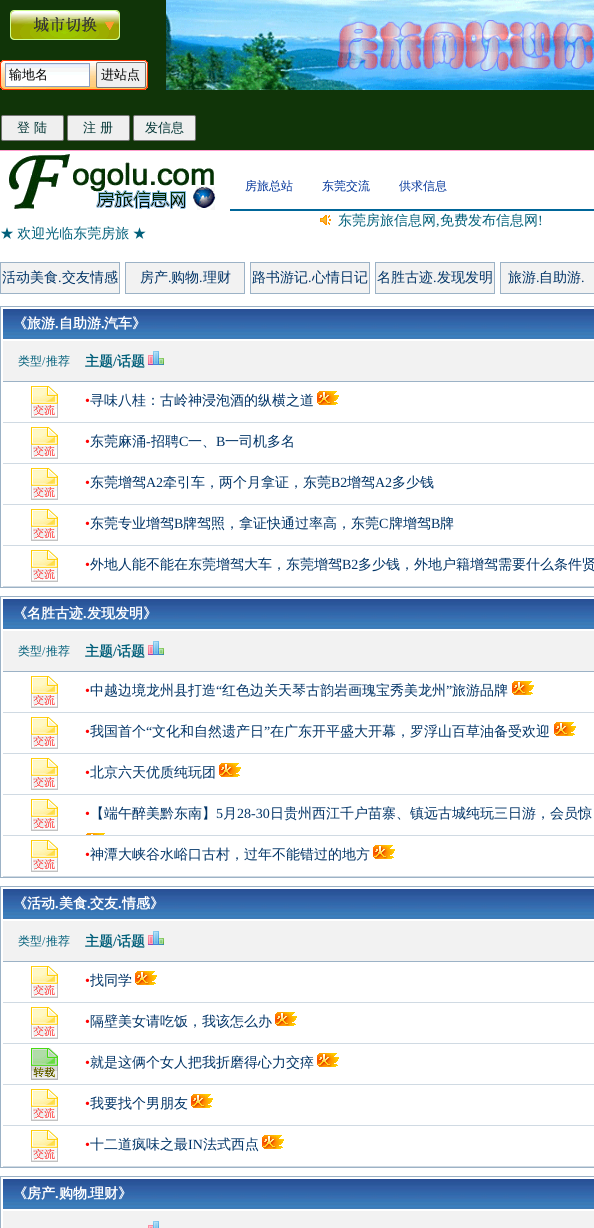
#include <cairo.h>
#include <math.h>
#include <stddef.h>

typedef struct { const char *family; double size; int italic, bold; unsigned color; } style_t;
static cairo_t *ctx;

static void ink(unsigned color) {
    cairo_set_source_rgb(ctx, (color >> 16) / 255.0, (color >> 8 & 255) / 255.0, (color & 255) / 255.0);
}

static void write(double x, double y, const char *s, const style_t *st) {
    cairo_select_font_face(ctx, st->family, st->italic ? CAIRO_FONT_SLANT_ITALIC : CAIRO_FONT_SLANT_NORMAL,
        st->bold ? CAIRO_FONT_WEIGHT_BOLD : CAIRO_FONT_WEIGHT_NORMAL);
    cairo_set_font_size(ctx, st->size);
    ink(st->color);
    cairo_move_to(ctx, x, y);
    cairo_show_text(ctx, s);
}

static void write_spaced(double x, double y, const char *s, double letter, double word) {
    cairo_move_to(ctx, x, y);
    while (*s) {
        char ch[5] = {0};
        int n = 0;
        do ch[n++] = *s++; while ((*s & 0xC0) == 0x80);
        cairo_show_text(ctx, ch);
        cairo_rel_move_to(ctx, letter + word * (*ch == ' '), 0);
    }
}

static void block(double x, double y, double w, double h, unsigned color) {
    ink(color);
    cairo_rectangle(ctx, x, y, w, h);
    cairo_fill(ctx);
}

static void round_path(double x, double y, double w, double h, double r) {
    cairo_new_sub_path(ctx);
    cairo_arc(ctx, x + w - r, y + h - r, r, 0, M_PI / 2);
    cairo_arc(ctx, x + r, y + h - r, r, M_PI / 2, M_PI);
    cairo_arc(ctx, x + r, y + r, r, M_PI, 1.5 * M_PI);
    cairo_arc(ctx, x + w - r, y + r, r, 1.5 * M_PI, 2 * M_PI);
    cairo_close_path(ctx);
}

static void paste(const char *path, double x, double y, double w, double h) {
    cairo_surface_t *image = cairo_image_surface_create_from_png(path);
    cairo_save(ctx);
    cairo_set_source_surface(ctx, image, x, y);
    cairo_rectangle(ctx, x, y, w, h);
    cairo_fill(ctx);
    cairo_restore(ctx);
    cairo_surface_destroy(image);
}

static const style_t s1 = {"WenQuanYi Zen Hei Medium", 13, 0, 0, 0x000000};
static const style_t s2 = {"WenQuanYi Zen Hei Medium", 13, 0, 0, 0x003333};
static const style_t s3 = {"WenQuanYi Zen Hei Medium", 12, 0, 0, 0x003399};
static const style_t s4 = {"WenQuanYi Zen Hei Medium", 14, 0, 0, 0x015f7a};
static const style_t s5 = {"Liberation Serif", 14, 0, 0, 0x015f7a};
static const style_t s6 = {"WenQuanYi Zen Hei Medium", 14, 0, 0, 0x003366};
static const style_t s7 = {"Liberation Serif", 14, 0, 0, 0x003366};
static const style_t s8 = {"WenQuanYi Zen Hei", 14, 0, 1, 0xffffff};
static const style_t s9 = {"Liberation Serif", 14, 0, 1, 0xffffff};
static const style_t s10 = {"WenQuanYi Zen Hei Medium", 12, 0, 0, 0x015f7a};
static const style_t s11 = {"Liberation Serif", 12, 0, 0, 0x015f7a};
static const style_t s12 = {"WenQuanYi Zen Hei", 14, 0, 1, 0x015f7a};
static const style_t s13 = {"Liberation Serif", 14, 0, 1, 0x015f7a};
static const style_t s14 = {"Liberation Serif", 14, 0, 0, 0xff0000};

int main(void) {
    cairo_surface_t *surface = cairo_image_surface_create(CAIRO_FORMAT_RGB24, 594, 1228);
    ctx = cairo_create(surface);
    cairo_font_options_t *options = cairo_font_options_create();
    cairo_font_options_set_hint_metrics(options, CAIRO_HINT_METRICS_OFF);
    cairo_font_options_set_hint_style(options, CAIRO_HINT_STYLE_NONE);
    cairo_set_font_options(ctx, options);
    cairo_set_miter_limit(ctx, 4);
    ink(0xffffff);
    cairo_paint(ctx);
    block(0, 0, 594, 150, 0x103408);
    block(0, 150, 594, 1, 0xff9ece);
    paste("pic1.png", 10, 10, 110, 30);
    paste("pic2.png", 0, 60, 148, 30);
    block(6, 75, 83, 11, 0xffffff);
    paste("pic3.png", 6, 64, 83, 11);
    cairo_rectangle(ctx, 5.5, 63.5, 84, 23);
    ink(0x8b9ec0);
    cairo_set_line_width(ctx, 1);
    cairo_stroke(ctx);
    write(9, 79, "输地名", &s1);
    ink(0xefefef);
    round_path(96.5, 62.5, 49, 25, 1.5);
    cairo_fill_preserve(ctx);
    ink(0x767676);
    cairo_stroke(ctx);
    write(101, 79, "进站点", &s1);
    paste("pic4.png", 166, 0, 428, 90);
    ink(0xefefef);
    round_path(1.5, 115.5, 62, 25, 1.5);
    cairo_fill_preserve(ctx);
    ink(0x767676);
    cairo_stroke(ctx);
    write(17, 132, "登 陆", &s2);
    ink(0xefefef);
    round_path(67.5, 115.5, 62, 25, 1.5);
    cairo_fill_preserve(ctx);
    ink(0x767676);
    cairo_stroke(ctx);
    write(83, 132, "注 册", &s2);
    ink(0xefefef);
    round_path(133.5, 115.5, 62, 25, 1.5);
    cairo_fill_preserve(ctx);
    ink(0x767676);
    cairo_stroke(ctx);
    write(145, 132, "发信息", &s2);
    paste("pic5.png", 9, 154, 207, 56);
    block(230, 209, 364, 2, 0x006699);
    write(245, 190, "房旅总站", &s3);
    write(322, 190, "东莞交流", &s3);
    write(399, 190, "供求信息", &s3);
    paste("pic6.png", 320, 215, 11, 10);
    write(338, 225, "东莞房旅信息网", &s4);
    write(436, 225, ",", &s5);
    write(440, 225, "免费发布信息网", &s4);
    write(538, 225, "!", &s5);
    cairo_select_font_face(ctx, "WenQuanYi Zen Hei Medium", CAIRO_FONT_SLANT_NORMAL, CAIRO_FONT_WEIGHT_NORMAL);
    write_spaced(0, 238, "★ 欢迎光临东莞房旅 ★", 0, -1);
    ink(0xf2f2f2);
    cairo_rectangle(ctx, 0.5, 262.5, 119, 31);
    cairo_fill_preserve(ctx);
    ink(0x9cb2c6);
    cairo_stroke(ctx);
    write(2, 282, "活动美食", &s6);
    write(58, 282, ".", &s7);
    write(62, 282, "交友情感", &s6);
    ink(0xf2f2f2);
    cairo_rectangle(ctx, 125.5, 262.5, 119, 31);
    cairo_fill_preserve(ctx);
    ink(0x9cb2c6);
    cairo_stroke(ctx);
    write(140, 282, "房产", &s6);
    write(168, 282, ".", &s7);
    write(171, 282, "购物", &s6);
    write(199, 282, ".", &s7);
    write(203, 282, "理财", &s6);
    ink(0xf2f2f2);
    cairo_rectangle(ctx, 250.5, 262.5, 119, 31);
    cairo_fill_preserve(ctx);
    ink(0x9cb2c6);
    cairo_stroke(ctx);
    write(252, 282, "路书游记", &s6);
    write(308, 282, ".", &s7);
    write(312, 282, "心情日记", &s6);
    ink(0xf2f2f2);
    cairo_rectangle(ctx, 375.5, 262.5, 119, 31);
    cairo_fill_preserve(ctx);
    ink(0x9cb2c6);
    cairo_stroke(ctx);
    write(377, 282, "名胜古迹", &s6);
    write(433, 282, ".", &s7);
    write(437, 282, "发现发明", &s6);
    ink(0xf2f2f2);
    cairo_rectangle(ctx, 500.5, 262.5, 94, 31);
    cairo_fill_preserve(ctx);
    ink(0x9cb2c6);
    cairo_stroke(ctx);
    write(508, 282, "旅游", &s6);
    write(536, 282, ".", &s7);
    write(539, 282, "自助游", &s6);
    write(581, 282, ".", &s7);
    cairo_rectangle(ctx, 0.5, 306.5, 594, 281);
    ink(0x9cb2c6);
    cairo_stroke(ctx);
    paste("pic7.png", 3, 309, 591, 30);
    write(13, 328, "《旅游", &s8);
    write(55, 328, ".", &s9);
    write(59, 328, "自助游", &s8);
    write(101, 328, ".", &s9);
    write(104, 328, "汽车》", &s8);
    block(3, 381, 591, 1, 0x9cb2c6);
    block(3, 341, 591, 40, 0xf2f2f2);
    write(18, 365, "类型", &s10);
    write(42, 365, "/", &s11);
    write(46, 365, "推荐", &s10);
    write(85, 366, "主题", &s12);
    write(113, 366, "/", &s13);
    write(117, 366, "话题", &s12);
    paste("pic8.png", 148, 351, 16, 14);
    block(3, 422, 591, 1, 0xd0dae3);
    paste("pic9.png", 31, 386, 27, 32);
    write(85, 405, "•", &s14);
    write(90, 405, "寻味八桂：古岭神浸泡酒的纵横之道", &s6);
    paste("pic10.png", 317, 391, 22, 14);
    block(3, 463, 591, 1, 0xd0dae3);
    paste("pic9.png", 31, 427, 27, 32);
    write(85, 446, "•", &s14);
    write(90, 446, "东莞麻涌", &s6);
    write(146, 446, "-", &s7);
    write(151, 446, "招聘", &s6);
    write(179, 446, "C", &s7);
    write(188, 446, "一、", &s6);
    write(216, 446, "B", &s7);
    write(225, 446, "一司机多名", &s6);
    block(3, 504, 591, 1, 0xd0dae3);
    paste("pic9.png", 31, 468, 27, 32);
    write(85, 487, "•", &s14);
    write(90, 487, "东莞增驾", &s6);
    write(146, 487, "A2", &s7);
    write(163, 487, "牵引车，两个月拿证，东莞", &s6);
    write(331, 487, "B2", &s7);
    write(347, 487, "增驾", &s6);
    write(375, 487, "A2", &s7);
    write(392, 487, "多少钱", &s6);
    block(3, 545, 591, 1, 0xd0dae3);
    paste("pic9.png", 31, 509, 27, 32);
    write(85, 528, "•", &s14);
    write(90, 528, "东莞专业增驾", &s6);
    write(174, 528, "B", &s7);
    write(183, 528, "牌驾照，拿证快通过率高，东莞", &s6);
    write(379, 528, "C", &s7);
    write(389, 528, "牌增驾", &s6);
    write(431, 528, "B", &s7);
    write(440, 528, "牌", &s6);
    block(3, 586, 591, 1, 0xd0dae3);
    paste("pic9.png", 31, 550, 27, 32);
    write(85, 569, "•", &s14);
    write(90, 569, "外地人能不能在东莞增驾大车，东莞增驾", &s6);
    write(342, 569, "B2", &s7);
    write(358, 569, "多少钱，外地户籍增驾需要什么条件贤", &s6);
    cairo_rectangle(ctx, 0.5, 596.5, 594, 281);
    ink(0x9cb2c6);
    cairo_stroke(ctx);
    paste("pic7.png", 3, 599, 591, 30);
    write(13, 618, "《名胜古迹", &s8);
    write(83, 618, ".", &s9);
    write(87, 618, "发现发明》", &s8);
    block(3, 671, 591, 1, 0x9cb2c6);
    block(3, 631, 591, 40, 0xf2f2f2);
    write(18, 655, "类型", &s10);
    write(42, 655, "/", &s11);
    write(46, 655, "推荐", &s10);
    write(85, 656, "主题", &s12);
    write(113, 656, "/", &s13);
    write(117, 656, "话题", &s12);
    paste("pic8.png", 148, 641, 16, 14);
    block(3, 712, 591, 1, 0xd0dae3);
    paste("pic9.png", 31, 676, 27, 32);
    write(85, 695, "•", &s14);
    write(90, 695, "中越边境龙州县打造", &s6);
    write(216, 695, "“", &s7);
    write(222, 695, "红色边关天琴古韵岩画瑰宝秀美龙州", &s6);
    write(446, 695, "”", &s7);
    write(452, 695, "旅游品牌", &s6);
    paste("pic10.png", 512, 681, 22, 14);
    block(3, 753, 591, 1, 0xd0dae3);
    paste("pic9.png", 31, 717, 27, 32);
    write(85, 736, "•", &s14);
    write(90, 736, "我国首个", &s6);
    write(146, 736, "“", &s7);
    write(152, 736, "文化和自然遗产日", &s6);
    write(264, 736, "”", &s7);
    write(270, 736, "在广东开平盛大开幕，罗浮山百草油备受欢迎", &s6);
    paste("pic10.png", 554, 722, 22, 14);
    block(3, 794, 591, 1, 0xd0dae3);
    paste("pic9.png", 31, 758, 27, 32);
    write(85, 777, "•", &s14);
    write(90, 777, "北京六天优质纯玩团", &s6);
    paste("pic10.png", 219, 763, 22, 14);
    block(3, 835, 591, 1, 0xd0dae3);
    paste("pic9.png", 31, 799, 27, 32);
    write(85, 818, "•", &s14);
    write(90, 818, "【端午醉美黔东南】", &s6);
    write(216, 818, "5", &s7);
    write(223, 818, "月", &s6);
    write(237, 818, "28-30", &s7);
    write(270, 818, "日贵州西江千户苗寨、镇远古城纯玩三日游，会员惊", &s6);
    paste("pic11.png", 86, 833, 19, 2);
    block(3, 876, 591, 1, 0xd0dae3);
    paste("pic9.png", 31, 840, 27, 32);
    write(85, 859, "•", &s14);
    write(90, 859, "神潭大峡谷水峪口古村，过年不能错过的地方", &s6);
    paste("pic10.png", 373, 845, 22, 14);
    cairo_rectangle(ctx, 0.5, 886.5, 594, 281);
    ink(0x9cb2c6);
    cairo_stroke(ctx);
    paste("pic7.png", 3, 889, 591, 30);
    write(13, 908, "《活动", &s8);
    write(55, 908, ".", &s9);
    write(59, 908, "美食", &s8);
    write(87, 908, ".", &s9);
    write(90, 908, "交友", &s8);
    write(118, 908, ".", &s9);
    write(122, 908, "情感》", &s8);
    block(3, 961, 591, 1, 0x9cb2c6);
    block(3, 921, 591, 40, 0xf2f2f2);
    write(18, 945, "类型", &s10);
    write(42, 945, "/", &s11);
    write(46, 945, "推荐", &s10);
    write(85, 946, "主题", &s12);
    write(113, 946, "/", &s13);
    write(117, 946, "话题", &s12);
    paste("pic8.png", 148, 931, 16, 14);
    block(3, 1002, 591, 1, 0xd0dae3);
    paste("pic9.png", 31, 966, 27, 32);
    write(85, 985, "•", &s14);
    write(90, 985, "找同学", &s6);
    paste("pic10.png", 135, 971, 22, 14);
    block(3, 1043, 591, 1, 0xd0dae3);
    paste("pic9.png", 31, 1007, 27, 32);
    write(85, 1026, "•", &s14);
    write(90, 1026, "隔壁美女请吃饭，我该怎么办", &s6);
    paste("pic10.png", 275, 1012, 22, 14);
    block(3, 1084, 591, 1, 0xd0dae3);
    paste("pic12.png", 31, 1048, 27, 32);
    write(85, 1067, "•", &s14);
    write(90, 1067, "就是这俩个女人把我折磨得心力交瘁", &s6);
    paste("pic10.png", 317, 1053, 22, 14);
    block(3, 1125, 591, 1, 0xd0dae3);
    paste("pic9.png", 31, 1089, 27, 32);
    write(85, 1108, "•", &s14);
    write(90, 1108, "我要找个男朋友", &s6);
    paste("pic10.png", 191, 1094, 22, 14);
    block(3, 1166, 591, 1, 0xd0dae3);
    paste("pic9.png", 31, 1130, 27, 32);
    write(85, 1149, "•", &s14);
    write(90, 1149, "十二道疯味之最", &s6);
    write(188, 1149, "IN", &s7);
    write(203, 1149, "法式西点", &s6);
    paste("pic10.png", 262, 1135, 22, 14);
    cairo_rectangle(ctx, 0.5, 1176.5, 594, 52);
    ink(0x9cb2c6);
    cairo_stroke(ctx);
    paste("pic7.png", 3, 1179, 591, 30);
    write(13, 1198, "《房产", &s8);
    write(55, 1198, ".", &s9);
    write(59, 1198, "购物", &s8);
    write(87, 1198, ".", &s9);
    write(90, 1198, "理财》", &s8);
    block(3, 1211, 591, 17, 0xf2f2f2);
    paste("pic13.png", 148, 1221, 11, 7);
    cairo_surface_write_to_png(surface, "screenshot.png");
    cairo_font_options_destroy(options);
    cairo_destroy(ctx);
    cairo_surface_destroy(surface);
    return 0;
}
